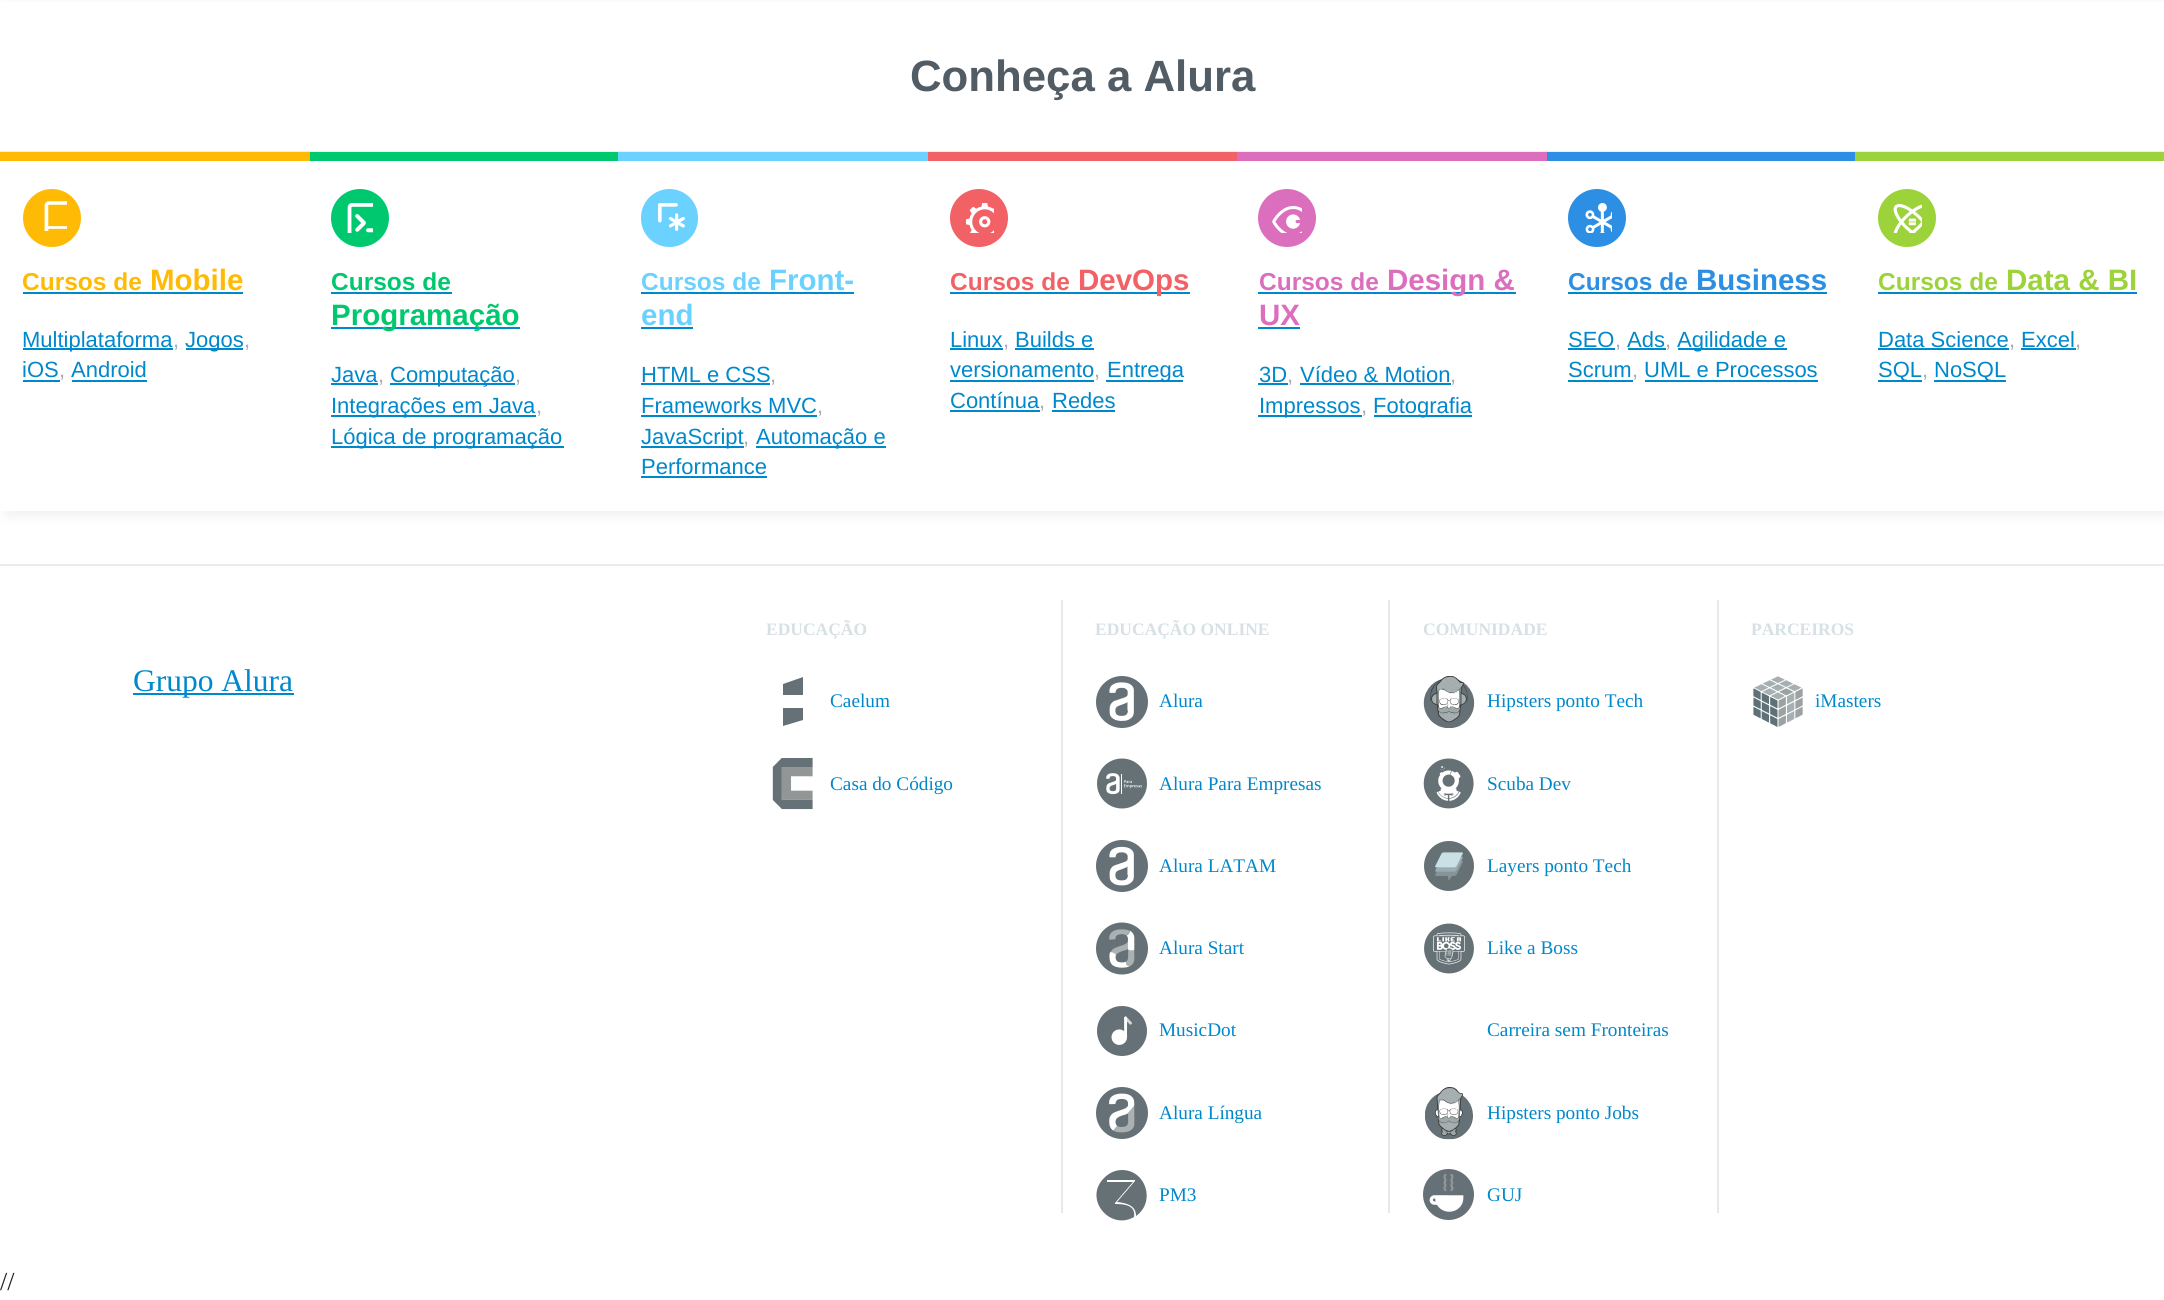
#include <cairo.h>
#include <math.h>
#include <stddef.h>

typedef struct { const char *family; double size; int italic, bold; unsigned color; } style_t;
static cairo_t *ctx;

static void ink(unsigned color) {
    cairo_set_source_rgb(ctx, (color >> 16) / 255.0, (color >> 8 & 255) / 255.0, (color & 255) / 255.0);
}

static void write(double x, double y, const char *s, const style_t *st) {
    cairo_select_font_face(ctx, st->family, st->italic ? CAIRO_FONT_SLANT_ITALIC : CAIRO_FONT_SLANT_NORMAL,
        st->bold ? CAIRO_FONT_WEIGHT_BOLD : CAIRO_FONT_WEIGHT_NORMAL);
    cairo_set_font_size(ctx, st->size);
    ink(st->color);
    cairo_move_to(ctx, x, y);
    cairo_show_text(ctx, s);
}

static void block(double x, double y, double w, double h, unsigned color) {
    ink(color);
    cairo_rectangle(ctx, x, y, w, h);
    cairo_fill(ctx);
}

static void round_path(double x, double y, double w, double h, double r) {
    cairo_new_sub_path(ctx);
    cairo_arc(ctx, x + w - r, y + h - r, r, 0, M_PI / 2);
    cairo_arc(ctx, x + r, y + h - r, r, M_PI / 2, M_PI);
    cairo_arc(ctx, x + r, y + r, r, M_PI, 1.5 * M_PI);
    cairo_arc(ctx, x + w - r, y + r, r, 1.5 * M_PI, 2 * M_PI);
    cairo_close_path(ctx);
}

static void blur_box(double x, double y, double w, double h, double r, double blur, double alpha) {
    cairo_push_group_with_content(ctx, CAIRO_CONTENT_ALPHA);
    cairo_set_operator(ctx, CAIRO_OPERATOR_SOURCE);
    for (int i = 15; i >= -15 && fmin(w, h) + blur * i / 3 > 0; i -= 2) {
        double e = blur * i / 6;
        cairo_set_source_rgba(ctx, 0, 0, 0, alpha * erfc((i - 1) / 8.5) / 2);
        round_path(x - e, y - e, w + 2 * e, h + 2 * e, fmax(0, fmin(r + e + blur * .6, fmin(w, h) / 2 + e)));
        cairo_fill(ctx);
    }
    cairo_pattern_t *soft = cairo_pop_group(ctx);
    cairo_mask(ctx, soft);
    cairo_pattern_destroy(soft);
}

static void paste(const char *path, double x, double y, double w, double h) {
    cairo_surface_t *image = cairo_image_surface_create_from_png(path);
    cairo_save(ctx);
    cairo_set_source_surface(ctx, image, x, y);
    cairo_rectangle(ctx, x, y, w, h);
    cairo_fill(ctx);
    cairo_restore(ctx);
    cairo_surface_destroy(image);
}

static const style_t s1 = {"Liberation Sans", 43.75, 0, 1, 0x525c65};
static const style_t s2 = {"Liberation Sans", 24.5, 0, 1, 0xffba05};
static const style_t s3 = {"Liberation Sans", 29.5, 0, 1, 0xffba05};
static const style_t s4 = {"Liberation Sans", 22, 0, 0, 0x0088cc};
static const style_t s5 = {"Liberation Sans", 22, 0, 0, 0xa9aeb2};
static const style_t s6 = {"Liberation Sans", 24.5, 0, 1, 0x00c86f};
static const style_t s7 = {"Liberation Sans", 29.5, 0, 1, 0x00c86f};
static const style_t s8 = {"Liberation Sans", 24.5, 0, 1, 0x6bd1ff};
static const style_t s9 = {"Liberation Sans", 29.5, 0, 1, 0x6bd1ff};
static const style_t s10 = {"Liberation Sans", 24.5, 0, 1, 0xf16165};
static const style_t s11 = {"Liberation Sans", 29.5, 0, 1, 0xf16165};
static const style_t s12 = {"Liberation Sans", 24.5, 0, 1, 0xdc6ebe};
static const style_t s13 = {"Liberation Sans", 29.5, 0, 1, 0xdc6ebe};
static const style_t s14 = {"Liberation Sans", 24.5, 0, 1, 0x2d8fe3};
static const style_t s15 = {"Liberation Sans", 29.5, 0, 1, 0x2d8fe3};
static const style_t s16 = {"Liberation Sans", 24.5, 0, 1, 0x9cd33b};
static const style_t s17 = {"Liberation Sans", 29.5, 0, 1, 0x9cd33b};
static const style_t s18 = {"Liberation Serif", 31.5, 0, 0, 0x0088cc};
static const style_t s19 = {"Liberation Serif", 17.5, 0, 1, 0xd7e0e5};
static const style_t s20 = {"Liberation Serif", 19.25, 0, 0, 0x0088cc};
static const style_t s21 = {"Liberation Serif", 26, 0, 0, 0x222222};

int main(void) {
    cairo_surface_t *surface = cairo_image_surface_create(CAIRO_FORMAT_RGB24, 2164, 1300);
    ctx = cairo_create(surface);
    cairo_font_options_t *options = cairo_font_options_create();
    cairo_font_options_set_hint_metrics(options, CAIRO_HINT_METRICS_OFF);
    cairo_font_options_set_hint_style(options, CAIRO_HINT_STYLE_NONE);
    cairo_set_font_options(ctx, options);
    cairo_set_miter_limit(ctx, 4);
    ink(0xffffff);
    cairo_paint(ctx);
    cairo_save(ctx);
    cairo_set_fill_rule(ctx, CAIRO_FILL_RULE_EVEN_ODD);
    cairo_new_path(ctx);
    cairo_move_to(ctx, 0, 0);
    cairo_line_to(ctx, 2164, 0);
    cairo_line_to(ctx, 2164, 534);
    cairo_line_to(ctx, 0, 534);
    cairo_close_path(ctx);
    cairo_move_to(ctx, 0, 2);
    cairo_line_to(ctx, 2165, 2);
    cairo_line_to(ctx, 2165, 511);
    cairo_line_to(ctx, 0, 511);
    cairo_close_path(ctx);
    cairo_clip(ctx);
    ink(0x525f6b);
    blur_box(7, 5, 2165, 510, 0, 6, 0.1);
    cairo_restore(ctx);
    block(0, 151, 2164, 1, 0xe2f0ff);
    write(910, 91, "Conheça a Alura", &s1);
    block(0, 152, 310, 9, 0xffba05);
    cairo_new_path(ctx);
    cairo_arc(ctx, 52, 218, 29, 0, 2 * M_PI);
    cairo_fill(ctx);
    paste("pic1.png", 44, 201, 23, 30);
    write(22, 290, "Cursos de", &s2);
    block(23, 292, 220, 2, 0x0088cc);
    write(150, 290, "Mobile", &s3);
    block(23, 348, 150, 2, 0x0088cc);
    write(22, 347, "Multiplataforma", &s4);
    write(173, 347, ",", &s5);
    block(186, 348, 57, 2, 0x0088cc);
    write(185, 347, "Jogos", &s4);
    write(244, 347, ",", &s5);
    write(22, 377, "iOS", &s4);
    block(23, 380, 37, 2, 0x0088cc);
    write(59, 377, ",", &s5);
    write(71, 377, "Android", &s4);
    block(72, 380, 75, 2, 0x0088cc);
    block(310, 152, 308, 9, 0x00c86f);
    cairo_new_path(ctx);
    cairo_arc(ctx, 360, 218, 29, 0, 2 * M_PI);
    cairo_fill(ctx);
    paste("pic2.png", 347, 203, 26, 30);
    write(331, 290, "Cursos de", &s6);
    block(331, 292, 121, 2, 0x0088cc);
    block(331, 327, 189, 2, 0x0088cc);
    write(331, 325, "Programação", &s7);
    write(331, 382, "Java", &s4);
    block(331, 383, 47, 2, 0x0088cc);
    write(378, 382, ",", &s5);
    block(390, 383, 125, 2, 0x0088cc);
    write(390, 382, "Computação", &s4);
    write(515, 382, ",", &s5);
    block(331, 415, 205, 2, 0x0088cc);
    write(331, 413, "Integrações em Java", &s4);
    write(536, 413, ",", &s5);
    block(331, 446, 233, 2, 0x0088cc);
    write(331, 444, "Lógica de programação", &s4);
    block(618, 152, 310, 9, 0x6bd1ff);
    round_path(641, 189, 57, 58, 28.5);
    cairo_fill(ctx);
    paste("pic3.png", 658, 203, 27, 28);
    write(641, 290, "Cursos de", &s8);
    block(641, 292, 213, 2, 0x0088cc);
    write(769, 290, "Front-", &s9);
    write(641, 325, "end", &s9);
    block(641, 327, 52, 2, 0x0088cc);
    write(641, 382, "HTML e CSS", &s4);
    block(641, 383, 129, 2, 0x0088cc);
    write(770, 382, ",", &s5);
    write(641, 413, "Frameworks MVC", &s4);
    block(641, 415, 176, 2, 0x0088cc);
    write(817, 413, ",", &s5);
    block(641, 446, 103, 2, 0x0088cc);
    write(641, 444, "JavaScript", &s4);
    write(743, 444, ",", &s5);
    block(756, 446, 130, 2, 0x0088cc);
    write(756, 444, "Automação e", &s4);
    write(641, 474, "Performance", &s4);
    block(641, 476, 126, 2, 0x0088cc);
    block(928, 152, 309, 9, 0xf16165);
    cairo_new_path(ctx);
    cairo_arc(ctx, 979, 218, 29, 0, 2 * M_PI);
    cairo_fill(ctx);
    paste("pic4.png", 966, 203, 28, 30);
    write(950, 290, "Cursos de", &s10);
    block(950, 292, 240, 2, 0x0088cc);
    write(1078, 290, "DevOps", &s11);
    write(950, 347, "Linux", &s4);
    block(950, 348, 53, 2, 0x0088cc);
    write(1003, 347, ",", &s5);
    write(1015, 347, "Builds e", &s4);
    block(1015, 348, 79, 2, 0x0088cc);
    write(950, 377, "versionamento", &s4);
    block(950, 380, 144, 2, 0x0088cc);
    write(1094, 377, ",", &s5);
    block(1106, 380, 77, 2, 0x0088cc);
    write(1107, 377, "Entrega", &s4);
    write(950, 408, "Contínua", &s4);
    block(950, 410, 90, 2, 0x0088cc);
    write(1039, 408, ",", &s5);
    write(1052, 408, "Redes", &s4);
    block(1052, 410, 63, 2, 0x0088cc);
    block(1237, 152, 310, 9, 0xdc6ebe);
    cairo_new_path(ctx);
    cairo_arc(ctx, 1287, 218, 29, 0, 2 * M_PI);
    cairo_fill(ctx);
    paste("pic5.png", 1272, 206, 30, 27);
    write(1259, 290, "Cursos de", &s12);
    block(1258, 292, 258, 2, 0x0088cc);
    write(1387, 290, "Design &", &s13);
    write(1259, 325, "UX", &s13);
    block(1258, 327, 42, 2, 0x0088cc);
    write(1259, 382, "3D", &s4);
    block(1258, 383, 30, 2, 0x0088cc);
    write(1287, 382, ",", &s5);
    write(1300, 382, "Vídeo & Motion", &s4);
    block(1300, 383, 151, 2, 0x0088cc);
    write(1450, 382, ",", &s5);
    block(1258, 415, 104, 2, 0x0088cc);
    write(1259, 413, "Impressos", &s4);
    write(1361, 413, ",", &s5);
    block(1374, 415, 98, 2, 0x0088cc);
    write(1373, 413, "Fotografia", &s4);
    block(1547, 152, 308, 9, 0x2d8fe3);
    cairo_new_path(ctx);
    cairo_arc(ctx, 1597, 218, 29, 0, 2 * M_PI);
    cairo_fill(ctx);
    paste("pic6.png", 1585, 203, 27, 30);
    write(1568, 290, "Cursos de", &s14);
    block(1568, 292, 259, 2, 0x0088cc);
    write(1696, 290, "Business", &s15);
    write(1568, 347, "SEO", &s4);
    block(1568, 348, 47, 2, 0x0088cc);
    write(1615, 347, ",", &s5);
    write(1627, 347, "Ads", &s4);
    block(1628, 348, 38, 2, 0x0088cc);
    write(1665, 347, ",", &s5);
    block(1678, 348, 109, 2, 0x0088cc);
    write(1677, 347, "Agilidade e", &s4);
    write(1568, 377, "Scrum", &s4);
    block(1568, 380, 65, 2, 0x0088cc);
    write(1632, 377, ",", &s5);
    write(1644, 377, "UML e Processos", &s4);
    block(1645, 380, 173, 2, 0x0088cc);
    block(1855, 152, 309, 9, 0x9cd33b);
    cairo_new_path(ctx);
    cairo_arc(ctx, 1907, 218, 29, 0, 2 * M_PI);
    cairo_fill(ctx);
    paste("pic7.png", 1893, 203, 29, 30);
    write(1878, 290, "Cursos de", &s16);
    block(1878, 292, 259, 2, 0x0088cc);
    write(2006, 290, "Data & BI", &s17);
    write(1878, 347, "Data Science", &s4);
    block(1878, 348, 131, 2, 0x0088cc);
    write(2009, 347, ",", &s5);
    write(2021, 347, "Excel", &s4);
    block(2021, 348, 55, 2, 0x0088cc);
    write(2075, 347, ",", &s5);
    block(1878, 380, 44, 2, 0x0088cc);
    write(1878, 377, "SQL", &s4);
    write(1922, 377, ",", &s5);
    block(1934, 380, 72, 2, 0x0088cc);
    write(1934, 377, "NoSQL", &s4);
    block(0, 564, 2164, 2, 0xebebee);
    block(133, 693, 161, 2, 0x0088cc);
    write(133, 691, "Grupo Alura", &s18);
    write(766, 635, "EDUCAÇÃO", &s19);
    ink(0x667177);
    cairo_new_path(ctx);
    cairo_move_to(ctx, 783, 684);
    cairo_line_to(ctx, 783, 695);
    cairo_line_to(ctx, 803, 695);
    cairo_line_to(ctx, 803, 677);
    cairo_close_path(ctx);
    cairo_move_to(ctx, 783, 726);
    cairo_line_to(ctx, 803, 720);
    cairo_line_to(ctx, 803, 708);
    cairo_line_to(ctx, 783, 708);
    cairo_close_path(ctx);
    cairo_fill(ctx);
    write(830, 707, "Caelum", &s20);
    paste("pic8.png", 772, 758, 41, 52);
    write(830, 790, "Casa do Código", &s20);
    block(1061, 600, 2, 613, 0xe3e9ed);
    write(1095, 635, "EDUCAÇÃO ONLINE", &s19);
    paste("pic9.png", 1096, 676, 52, 52);
    write(1159, 707, "Alura", &s20);
    paste("pic10.png", 1097, 758, 50, 51);
    write(1159, 790, "Alura Para Empresas", &s20);
    paste("pic11.png", 1096, 840, 52, 52);
    write(1159, 872, "Alura LATAM", &s20);
    paste("pic12.png", 1096, 922, 52, 53);
    write(1159, 954, "Alura Start", &s20);
    paste("pic13.png", 1097, 1006, 50, 50);
    write(1159, 1036, "MusicDot", &s20);
    paste("pic14.png", 1096, 1087, 52, 52);
    write(1159, 1119, "Alura Língua", &s20);
    ink(0x667176);
    cairo_new_path(ctx);
    cairo_move_to(ctx, 1122, 1170);
    cairo_curve_to(ctx, 1115, 1170, 1109, 1173, 1104, 1178);
    cairo_curve_to(ctx, 1083, 1199, 1110, 1231, 1134, 1217);
    cairo_curve_to(ctx, 1136, 1205, 1124, 1204, 1115, 1204);
    cairo_line_to(ctx, 1115, 1203);
    cairo_line_to(ctx, 1133, 1182);
    cairo_line_to(ctx, 1107, 1182);
    cairo_line_to(ctx, 1107, 1180);
    cairo_line_to(ctx, 1135, 1180);
    cairo_line_to(ctx, 1135, 1181);
    cairo_line_to(ctx, 1117, 1202);
    cairo_curve_to(ctx, 1126, 1203, 1136, 1205, 1136, 1216);
    cairo_curve_to(ctx, 1156, 1202, 1146, 1170, 1122, 1170);
    cairo_close_path(ctx);
    cairo_move_to(ctx, 1202, 1212);
    cairo_line_to(ctx, 1202, 1212);
    cairo_fill(ctx);
    write(1159, 1201, "PM3", &s20);
    block(1388, 600, 2, 613, 0xe3e9ed);
    write(1423, 635, "COMUNIDADE", &s19);
    paste("pic15.png", 1423, 676, 52, 52);
    write(1487, 707, "Hipsters ponto Tech", &s20);
    paste("pic16.png", 1423, 758, 51, 51);
    write(1487, 790, "Scuba Dev", &s20);
    paste("pic17.png", 1424, 841, 50, 50);
    write(1487, 872, "Layers ponto Tech", &s20);
    paste("pic18.png", 1424, 923, 50, 51);
    write(1487, 954, "Like a Boss", &s20);
    write(1487, 1036, "Carreira sem Fronteiras", &s20);
    paste("pic19.png", 1425, 1087, 48, 53);
    write(1487, 1119, "Hipsters ponto Jobs", &s20);
    paste("pic20.png", 1423, 1169, 51, 51);
    write(1487, 1201, "GUJ", &s20);
    block(1717, 600, 2, 613, 0xe3e9ed);
    write(1751, 635, "PARCEIROS", &s19);
    paste("pic21.png", 1753, 676, 50, 51);
    write(1815, 707, "iMasters", &s20);
    write(0, 1290, "//", &s21);
    cairo_surface_write_to_png(surface, "screenshot.png");
    cairo_font_options_destroy(options);
    cairo_destroy(ctx);
    cairo_surface_destroy(surface);
    return 0;
}
